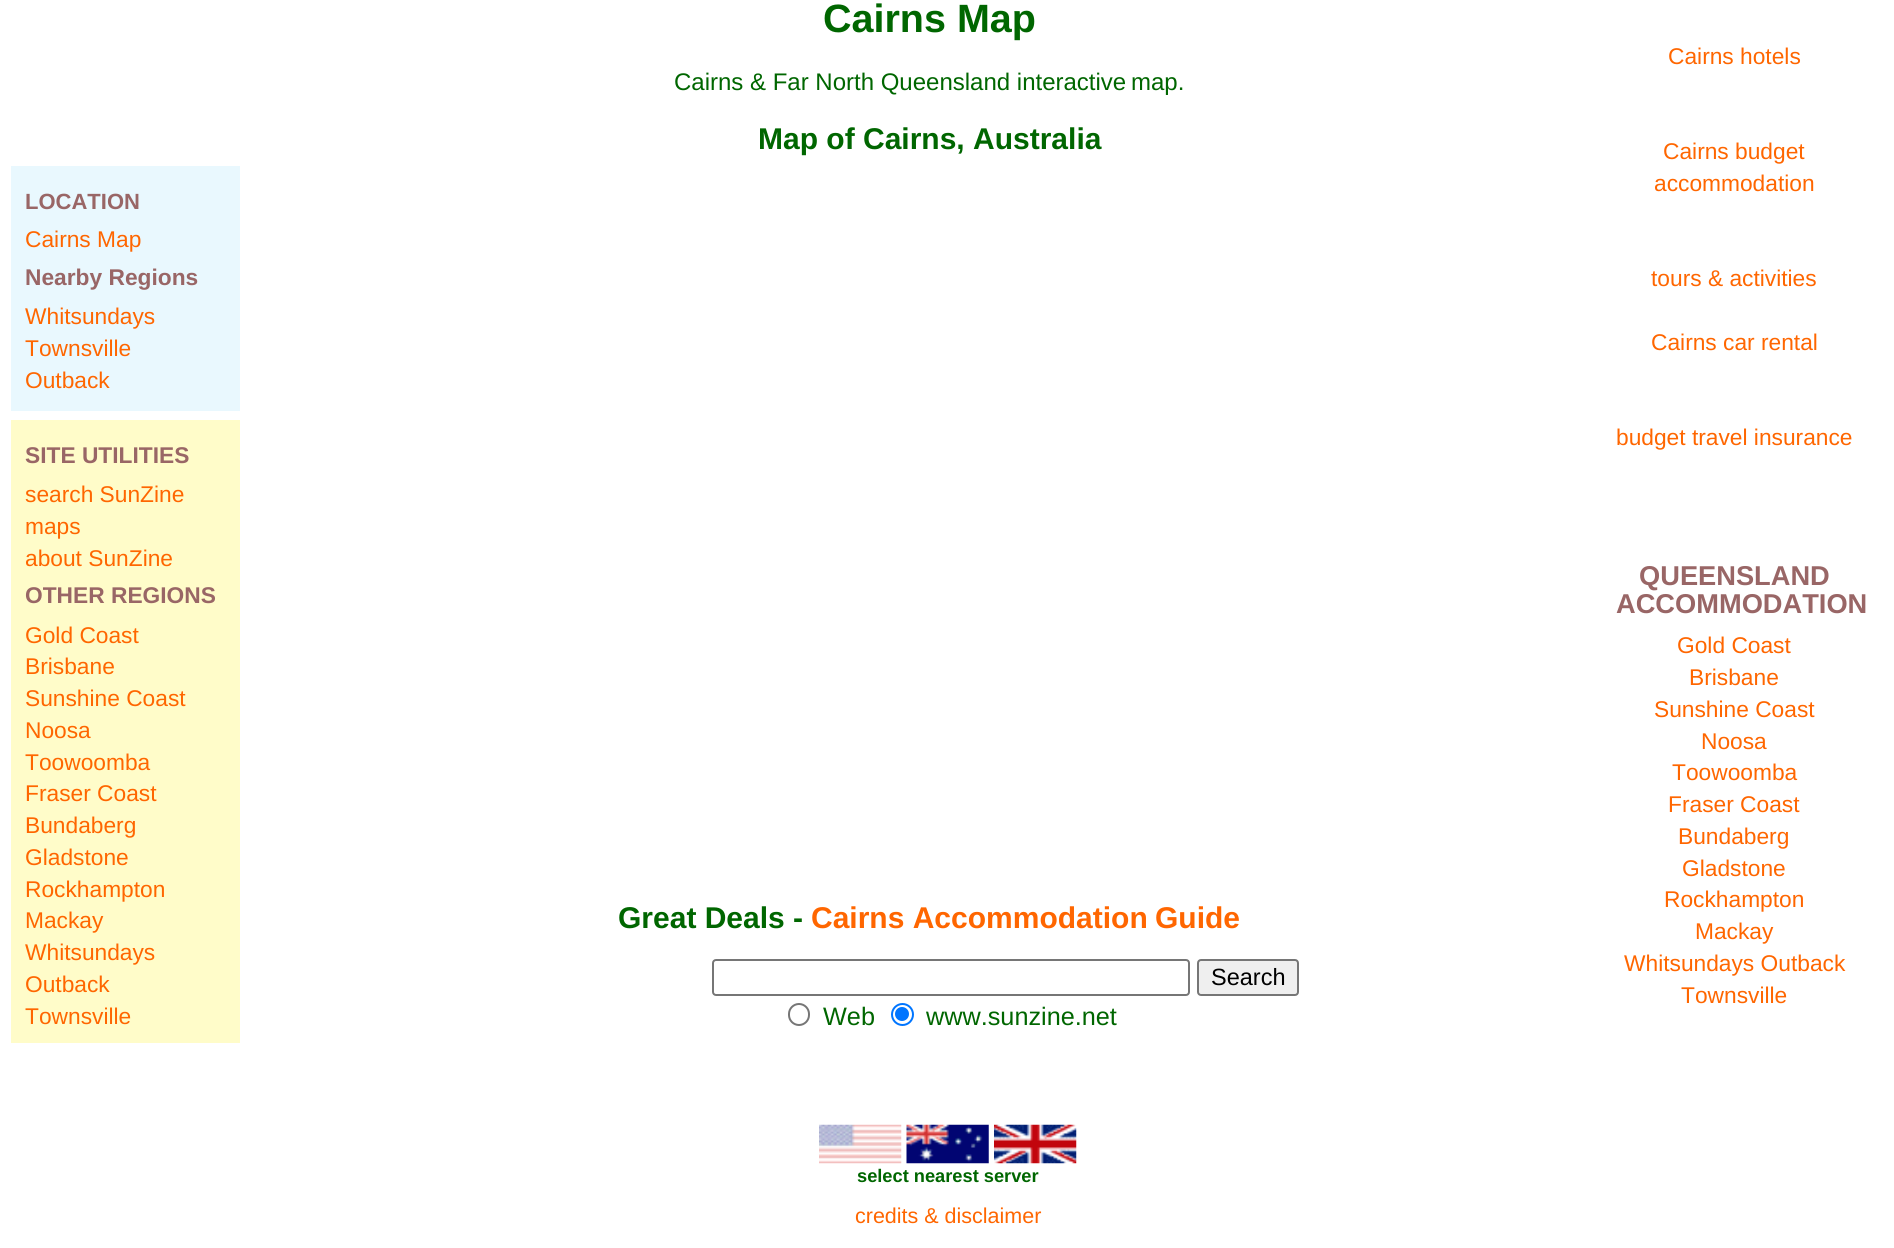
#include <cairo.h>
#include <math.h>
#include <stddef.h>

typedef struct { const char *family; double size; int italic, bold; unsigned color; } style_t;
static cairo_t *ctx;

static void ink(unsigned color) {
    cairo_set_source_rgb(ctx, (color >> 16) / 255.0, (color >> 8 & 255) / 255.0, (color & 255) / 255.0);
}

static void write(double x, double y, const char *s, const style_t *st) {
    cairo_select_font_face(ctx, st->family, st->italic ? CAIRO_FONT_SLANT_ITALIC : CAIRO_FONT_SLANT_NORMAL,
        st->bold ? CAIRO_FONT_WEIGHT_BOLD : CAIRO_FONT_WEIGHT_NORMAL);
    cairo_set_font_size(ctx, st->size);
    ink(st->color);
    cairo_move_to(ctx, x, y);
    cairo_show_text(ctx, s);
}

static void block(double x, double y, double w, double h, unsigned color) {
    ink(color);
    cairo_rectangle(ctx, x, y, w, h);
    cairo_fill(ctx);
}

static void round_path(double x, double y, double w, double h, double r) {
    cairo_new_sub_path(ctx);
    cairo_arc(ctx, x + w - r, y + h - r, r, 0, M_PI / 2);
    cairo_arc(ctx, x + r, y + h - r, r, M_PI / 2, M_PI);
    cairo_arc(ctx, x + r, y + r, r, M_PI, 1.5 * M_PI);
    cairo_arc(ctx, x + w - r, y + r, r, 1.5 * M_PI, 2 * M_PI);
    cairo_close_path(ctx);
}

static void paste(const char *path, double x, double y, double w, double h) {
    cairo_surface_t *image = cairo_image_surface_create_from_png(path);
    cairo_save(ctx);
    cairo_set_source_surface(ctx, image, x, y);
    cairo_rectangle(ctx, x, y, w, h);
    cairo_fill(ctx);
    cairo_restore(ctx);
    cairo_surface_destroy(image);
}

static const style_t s1 = {"Liberation Sans", 22, 0, 1, 0x996666};
static const style_t s2 = {"Liberation Sans", 22.75, 0, 0, 0xff6600};
static const style_t s3 = {"Liberation Sans", 22.75, 0, 1, 0x996666};
static const style_t s4 = {"Liberation Sans", 39.5, 0, 1, 0x006600};
static const style_t s5 = {"Liberation Sans", 24, 0, 0, 0x006600};
static const style_t s6 = {"Liberation Sans", 30, 0, 1, 0x006600};
static const style_t s7 = {"Liberation Sans", 30, 0, 1, 0xff6600};
static const style_t s8 = {"Liberation Sans", 27.25, 0, 1, 0x996666};
static const style_t s9 = {"Liberation Sans", 23.5, 0, 0, 0x000000};
static const style_t s10 = {"Liberation Sans", 25.25, 0, 0, 0x006600};
static const style_t s11 = {"Liberation Sans", 18.25, 0, 1, 0x006600};
static const style_t s12 = {"Liberation Sans", 21.5, 0, 0, 0xff6600};

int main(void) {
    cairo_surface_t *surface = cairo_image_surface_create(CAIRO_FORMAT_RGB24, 1894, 1248);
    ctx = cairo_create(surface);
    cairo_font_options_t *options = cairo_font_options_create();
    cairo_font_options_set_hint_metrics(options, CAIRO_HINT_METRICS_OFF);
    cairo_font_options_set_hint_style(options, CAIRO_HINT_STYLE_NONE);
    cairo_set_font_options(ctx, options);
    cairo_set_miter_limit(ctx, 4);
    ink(0xffffff);
    cairo_paint(ctx);
    block(11, 166, 229, 245, 0xe9f8fe);
    write(25, 209, "LOCATION", &s1);
    write(25, 247, "Cairns Map", &s2);
    write(25, 285, "Nearby Regions", &s3);
    write(25, 324, "Whitsundays", &s2);
    write(25, 356, "Townsville", &s2);
    write(25, 388, "Outback", &s2);
    write(823, 32, "Cairns Map", &s4);
    write(674, 90, "Cairns", &s5);
    write(750, 90, "& Far North Queensland interactive", &s5);
    write(1131, 90, "map.", &s5);
    write(758, 149, "Map of Cairns, Australia", &s6);
    write(618, 928, "Great Deals -", &s6);
    write(811, 928, "Cairns Accommodation", &s7);
    write(1155, 928, "Guide", &s7);
    write(1668, 64, "Cairns hotels", &s2);
    write(1663, 159, "Cairns budget", &s2);
    write(1654, 191, "accommodation", &s2);
    write(1651, 286, "tours & activities", &s2);
    write(1651, 350, "Cairns car rental", &s2);
    write(1616, 445, "budget travel insurance", &s2);
    write(1639, 585, "QUEENSLAND", &s8);
    write(1616, 613, "ACCOMMODATION", &s8);
    write(1677, 653, "Gold Coast", &s2);
    write(1689, 685, "Brisbane", &s2);
    write(1654, 717, "Sunshine Coast", &s2);
    write(1701, 749, "Noosa", &s2);
    write(1672, 780, "Toowoomba", &s2);
    write(1668, 812, "Fraser Coast", &s2);
    write(1678, 844, "Bundaberg", &s2);
    write(1682, 876, "Gladstone", &s2);
    write(1664, 907, "Rockhampton", &s2);
    write(1695, 939, "Mackay", &s2);
    write(1624, 971, "Whitsundays Outback", &s2);
    write(1681, 1003, "Townsville", &s2);
    block(11, 420, 229, 623, 0xfffcc9);
    write(25, 463, "SITE UTILITIES", &s3);
    write(25, 502, "search SunZine", &s2);
    write(25, 534, "maps", &s2);
    write(25, 566, "about SunZine", &s2);
    write(25, 603, "OTHER REGIONS", &s3);
    write(25, 643, "Gold Coast", &s2);
    write(25, 674, "Brisbane", &s2);
    write(25, 706, "Sunshine Coast", &s2);
    write(25, 738, "Noosa", &s2);
    write(25, 770, "Toowoomba", &s2);
    write(25, 801, "Fraser Coast", &s2);
    write(25, 833, "Bundaberg", &s2);
    write(25, 865, "Gladstone", &s2);
    write(25, 897, "Rockhampton", &s2);
    write(25, 928, "Mackay", &s2);
    write(25, 960, "Whitsundays", &s2);
    write(25, 992, "Outback", &s2);
    write(25, 1024, "Townsville", &s2);
    round_path(713, 960, 476, 35, 3);
    ink(0x767676);
    cairo_stroke(ctx);
    ink(0xefefef);
    round_path(1198, 960, 100, 35, 3);
    cairo_fill_preserve(ctx);
    ink(0x767676);
    cairo_stroke(ctx);
    write(1211, 985, "Search", &s9);
    round_path(789, 1004, 20, 21, 10);
    ink(0x767676);
    cairo_stroke(ctx);
    write(823, 1025, "Web", &s10);
    cairo_new_path(ctx);
    cairo_arc(ctx, 902.5, 1014.5, 10.5, 0, 2 * M_PI);
    ink(0x0075ff);
    cairo_stroke(ctx);
    cairo_arc(ctx, 902, 1014, 7, 0, 2 * M_PI);
    cairo_fill(ctx);
    write(926, 1025, "www.sunzine.net", &s10);
    paste("pic1.png", 819, 1124, 83, 40);
    paste("pic2.png", 906, 1124, 83, 40);
    paste("pic3.png", 994, 1124, 83, 40);
    write(857, 1182, "select nearest server", &s11);
    write(855, 1223, "credits & disclaimer", &s12);
    cairo_surface_write_to_png(surface, "screenshot.png");
    cairo_font_options_destroy(options);
    cairo_destroy(ctx);
    cairo_surface_destroy(surface);
    return 0;
}
